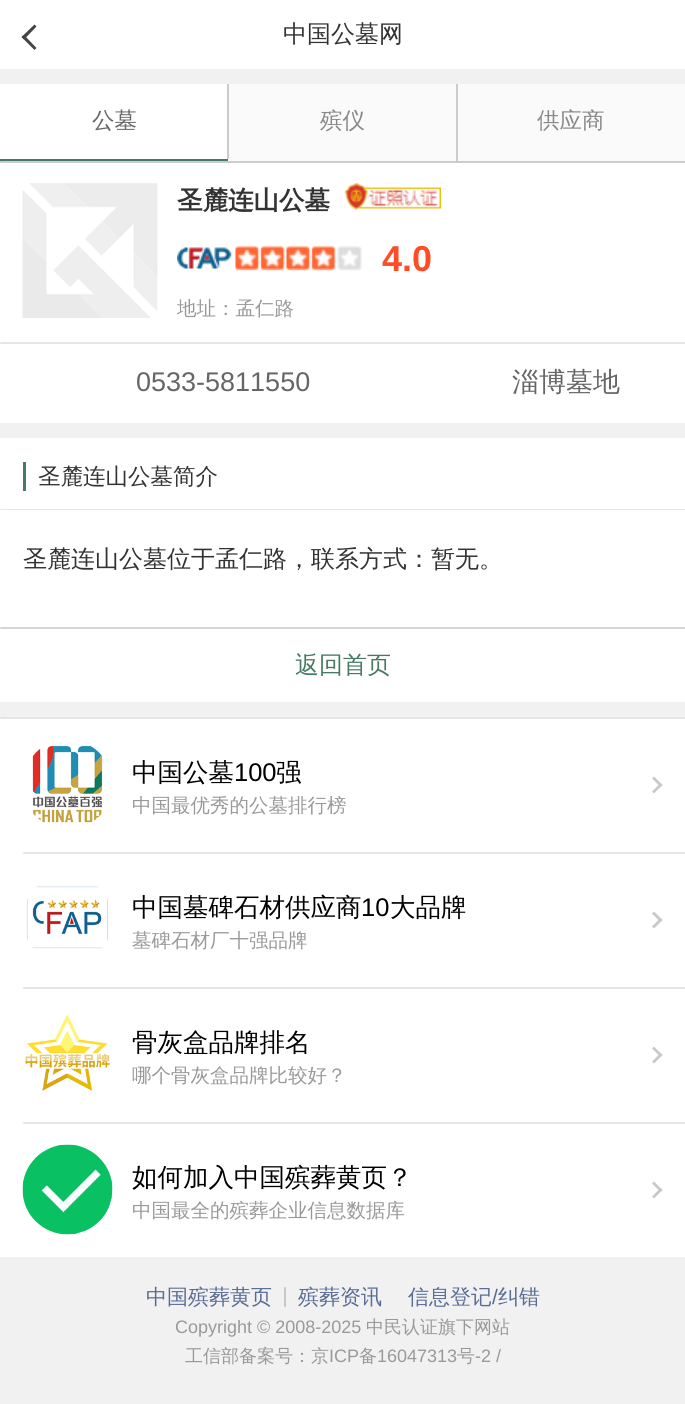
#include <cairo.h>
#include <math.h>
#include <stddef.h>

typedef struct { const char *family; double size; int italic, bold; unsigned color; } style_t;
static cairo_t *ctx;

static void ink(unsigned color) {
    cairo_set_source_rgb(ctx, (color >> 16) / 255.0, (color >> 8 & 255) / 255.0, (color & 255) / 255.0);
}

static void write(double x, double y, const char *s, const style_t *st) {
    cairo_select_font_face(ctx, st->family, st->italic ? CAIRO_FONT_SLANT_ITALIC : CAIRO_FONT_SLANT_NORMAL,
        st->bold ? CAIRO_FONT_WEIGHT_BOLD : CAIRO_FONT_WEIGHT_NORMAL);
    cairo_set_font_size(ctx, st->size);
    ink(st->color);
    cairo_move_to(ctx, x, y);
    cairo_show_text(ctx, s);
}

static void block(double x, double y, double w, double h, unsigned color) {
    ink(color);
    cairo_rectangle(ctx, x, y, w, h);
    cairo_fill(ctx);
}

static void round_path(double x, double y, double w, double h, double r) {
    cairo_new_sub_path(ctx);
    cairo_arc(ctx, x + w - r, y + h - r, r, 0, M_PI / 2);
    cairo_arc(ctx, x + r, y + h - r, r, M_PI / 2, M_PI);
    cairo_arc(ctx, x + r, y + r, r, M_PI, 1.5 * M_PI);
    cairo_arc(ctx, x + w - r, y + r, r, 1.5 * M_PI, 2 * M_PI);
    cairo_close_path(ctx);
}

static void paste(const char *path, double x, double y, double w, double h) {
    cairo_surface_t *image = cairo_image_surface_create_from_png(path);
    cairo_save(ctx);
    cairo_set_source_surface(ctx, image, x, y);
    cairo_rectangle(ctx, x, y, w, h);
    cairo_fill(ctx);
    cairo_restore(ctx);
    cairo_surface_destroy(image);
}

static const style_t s1 = {"WenQuanYi Zen Hei Medium", 24, 0, 0, 0x333333};
static const style_t s2 = {"WenQuanYi Zen Hei Medium", 22.5, 0, 0, 0x666666};
static const style_t s3 = {"WenQuanYi Zen Hei Medium", 22.5, 0, 0, 0x888888};
static const style_t s4 = {"WenQuanYi Zen Hei", 25.5, 0, 1, 0x333333};
static const style_t s5 = {"Liberation Sans", 36, 0, 1, 0xff4c24};
static const style_t s6 = {"WenQuanYi Zen Hei Medium", 19.5, 0, 0, 0x999999};
static const style_t s7 = {"Liberation Sans", 27, 0, 0, 0x666666};
static const style_t s8 = {"WenQuanYi Zen Hei Medium", 27, 0, 0, 0x666666};
static const style_t s9 = {"WenQuanYi Zen Hei Medium", 22.5, 0, 0, 0x333333};
static const style_t s10 = {"WenQuanYi Zen Hei Medium", 24, 0, 0, 0x467a64};
static const style_t s11 = {"WenQuanYi Zen Hei Medium", 25.5, 0, 0, 0x000000};
static const style_t s12 = {"Liberation Sans", 25.5, 0, 0, 0x000000};
static const style_t s13 = {"WenQuanYi Zen Hei Medium", 21, 0, 0, 0x586c94};
static const style_t s14 = {"Liberation Sans", 21, 0, 0, 0x586c94};
static const style_t s15 = {"Liberation Sans", 18, 0, 0, 0x999999};
static const style_t s16 = {"WenQuanYi Zen Hei Medium", 18, 0, 0, 0x999999};

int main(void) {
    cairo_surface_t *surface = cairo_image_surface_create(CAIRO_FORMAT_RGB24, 685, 1404);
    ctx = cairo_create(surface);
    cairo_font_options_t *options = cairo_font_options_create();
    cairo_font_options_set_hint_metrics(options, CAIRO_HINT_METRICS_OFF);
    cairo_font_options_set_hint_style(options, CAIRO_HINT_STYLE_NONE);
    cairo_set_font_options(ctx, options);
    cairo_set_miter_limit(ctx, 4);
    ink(0xf1f1f1);
    cairo_paint(ctx);
    block(0, 0, 685, 69, 0xffffff);
    ink(0x444444);
    cairo_new_path(ctx);
    cairo_move_to(ctx, 34.5, 24.5);
    cairo_line_to(ctx, 21.5, 37);
    cairo_line_to(ctx, 24, 39.5);
    cairo_line_to(ctx, 36.5, 26.5);
    cairo_close_path(ctx);
    cairo_fill(ctx);
    cairo_new_path(ctx);
    cairo_move_to(ctx, 24, 35);
    cairo_line_to(ctx, 21.5, 37);
    cairo_line_to(ctx, 34.5, 50);
    cairo_line_to(ctx, 36.5, 48);
    cairo_close_path(ctx);
    cairo_fill(ctx);
    write(283, 42, "中国公墓网", &s1);
    block(228, 84, 457, 77, 0xfafafa);
    block(0, 84, 227, 75, 0xffffff);
    block(0, 159, 228, 3, 0x467a64);
    write(92, 128, "公墓", &s2);
    block(227, 84, 2, 75, 0xcccccc);
    write(320, 128, "殡仪", &s3);
    block(456, 84, 2, 78, 0xcccccc);
    write(537, 128, "供应商", &s3);
    block(0, 162, 685, 261, 0xffffff);
    ink(0xcccccc);
    round_path(0, 161, 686, 2, 1);
    cairo_fill(ctx);
    paste("pic1.png", 22, 183, 136, 135);
    write(177, 209, "圣麓连山公墓", &s4);
    paste("pic2.png", 344, 183, 97, 27);
    paste("pic3.png", 177, 245, 185, 26);
    write(382, 271, "4.0", &s5);
    write(177, 315, "地址：孟仁路", &s6);
    ink(0xe5e5e5);
    round_path(0, 342, 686, 2, 1);
    cairo_fill(ctx);
    write(136, 391, "0533-5811550", &s7);
    write(512, 391, "淄博墓地", &s8);
    block(0, 438, 685, 264, 0xffffff);
    block(23, 462, 3, 29, 0x467a64);
    write(38, 484, "圣麓连山公墓简介", &s9);
    ink(0xe5e5e5);
    cairo_new_path(ctx);
    cairo_move_to(ctx, 1, 509);
    cairo_line_to(ctx, 685, 509);
    cairo_curve_to(ctx, 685.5, 509, 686, 509.5, 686, 510);
    cairo_line_to(ctx, 0, 510);
    cairo_curve_to(ctx, 0, 509.5, 0.5, 509, 1, 509);
    cairo_close_path(ctx);
    cairo_fill(ctx);
    write(23, 567, "圣麓连山公墓位于孟仁路，联系方式：暂无。", &s1);
    ink(0xd5d5d6);
    round_path(0, 627, 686, 2, 1);
    cairo_fill(ctx);
    write(295, 673, "返回首页", &s10);
    block(0, 717, 685, 540, 0xffffff);
    ink(0xe5e5e5);
    round_path(0, 717, 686, 2, 1);
    cairo_fill(ctx);
    paste("pic4.png", 32, 745, 71, 78);
    write(132, 781, "中国公墓", &s11);
    write(234, 781, "100", &s12);
    write(276, 781, "强", &s11);
    write(132, 812, "中国最优秀的公墓排行榜", &s6);
    ink(0xc8c8cd);
    cairo_new_path(ctx);
    cairo_move_to(ctx, 654, 776.5);
    cairo_line_to(ctx, 662.5, 785);
    cairo_line_to(ctx, 660.5, 787);
    cairo_line_to(ctx, 652, 778.5);
    cairo_close_path(ctx);
    cairo_fill(ctx);
    cairo_new_path(ctx);
    cairo_move_to(ctx, 660.5, 783);
    cairo_line_to(ctx, 662.5, 785);
    cairo_line_to(ctx, 654, 793.5);
    cairo_line_to(ctx, 652, 791.5);
    cairo_close_path(ctx);
    cairo_fill(ctx);
    ink(0xe5e5e5);
    round_path(23, 852, 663, 2, 1);
    cairo_fill(ctx);
    paste("pic5.png", 26, 886, 83, 63);
    write(132, 916, "中国墓碑石材供应商", &s11);
    write(361, 916, "10", &s12);
    write(390, 916, "大品牌", &s11);
    write(132, 947, "墓碑石材厂十强品牌", &s6);
    ink(0xc8c8cd);
    cairo_new_path(ctx);
    cairo_move_to(ctx, 654, 911.5);
    cairo_line_to(ctx, 662.5, 920);
    cairo_line_to(ctx, 660.5, 922);
    cairo_line_to(ctx, 652, 913.5);
    cairo_close_path(ctx);
    cairo_fill(ctx);
    cairo_new_path(ctx);
    cairo_move_to(ctx, 660.5, 918);
    cairo_line_to(ctx, 662.5, 920);
    cairo_line_to(ctx, 654, 928.5);
    cairo_line_to(ctx, 652, 926.5);
    cairo_close_path(ctx);
    cairo_fill(ctx);
    ink(0xe5e5e5);
    round_path(23, 987, 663, 2, 1);
    cairo_fill(ctx);
    paste("pic6.png", 25, 1014, 85, 77);
    write(132, 1051, "骨灰盒品牌排名", &s11);
    write(132, 1082, "哪个骨灰盒品牌比较好？", &s6);
    ink(0xc8c8cd);
    cairo_new_path(ctx);
    cairo_move_to(ctx, 654, 1046.5);
    cairo_line_to(ctx, 662.5, 1055);
    cairo_line_to(ctx, 660.5, 1057);
    cairo_line_to(ctx, 652, 1048.5);
    cairo_close_path(ctx);
    cairo_fill(ctx);
    cairo_new_path(ctx);
    cairo_move_to(ctx, 660.5, 1053);
    cairo_line_to(ctx, 662.5, 1055);
    cairo_line_to(ctx, 654, 1063.5);
    cairo_line_to(ctx, 652, 1061.5);
    cairo_close_path(ctx);
    cairo_fill(ctx);
    ink(0xe5e5e5);
    round_path(23, 1122, 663, 2, 1);
    cairo_fill(ctx);
    paste("pic7.png", 22, 1144, 91, 91);
    write(132, 1186, "如何加入中国殡葬黄页？", &s11);
    write(132, 1217, "中国最全的殡葬企业信息数据库", &s6);
    ink(0xc8c8cd);
    cairo_new_path(ctx);
    cairo_move_to(ctx, 654, 1181.5);
    cairo_line_to(ctx, 662.5, 1190);
    cairo_line_to(ctx, 660.5, 1192);
    cairo_line_to(ctx, 652, 1183.5);
    cairo_close_path(ctx);
    cairo_fill(ctx);
    cairo_new_path(ctx);
    cairo_move_to(ctx, 660.5, 1188);
    cairo_line_to(ctx, 662.5, 1190);
    cairo_line_to(ctx, 654, 1198.5);
    cairo_line_to(ctx, 652, 1196.5);
    cairo_close_path(ctx);
    cairo_fill(ctx);
    write(146, 1304, "中国殡葬黄页", &s13);
    ink(0xc7c7c7);
    round_path(284, 1287, 2, 20, 1);
    cairo_fill(ctx);
    write(298, 1304, "殡葬资讯", &s13);
    write(408, 1304, "信息登记", &s13);
    write(492, 1304, "/", &s14);
    write(498, 1304, "纠错", &s13);
    write(175, 1333, "Copyright © 2008-2025", &s15);
    write(366, 1333, "中民认证旗下网站", &s16);
    write(185, 1362, "工信部备案号：京", &s16);
    write(329, 1362, "ICP", &s15);
    write(359, 1362, "备", &s16);
    write(377, 1362, "16047313", &s15);
    write(457, 1362, "号", &s16);
    write(475, 1362, "-2 /", &s15);
    cairo_surface_write_to_png(surface, "screenshot.png");
    cairo_font_options_destroy(options);
    cairo_destroy(ctx);
    cairo_surface_destroy(surface);
    return 0;
}
